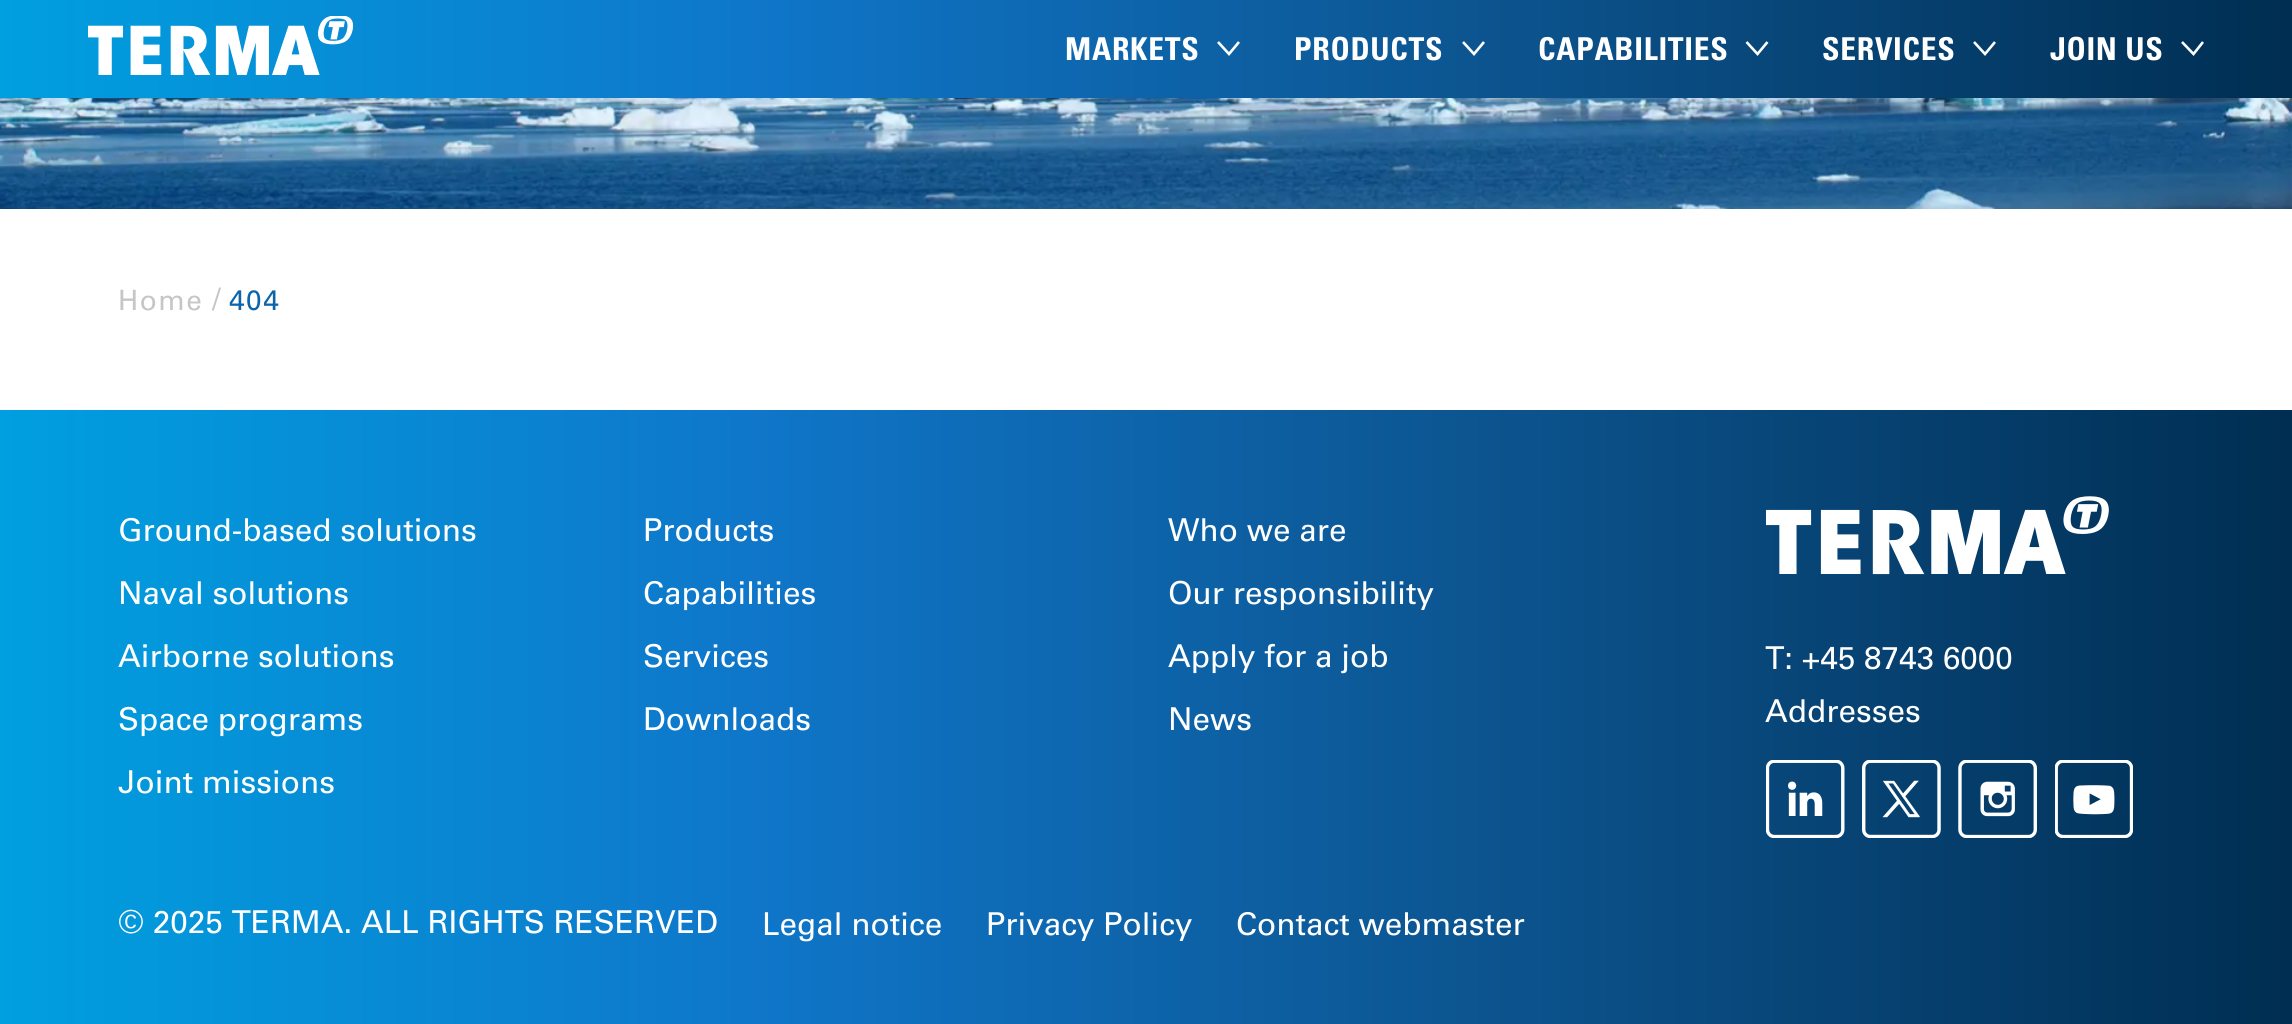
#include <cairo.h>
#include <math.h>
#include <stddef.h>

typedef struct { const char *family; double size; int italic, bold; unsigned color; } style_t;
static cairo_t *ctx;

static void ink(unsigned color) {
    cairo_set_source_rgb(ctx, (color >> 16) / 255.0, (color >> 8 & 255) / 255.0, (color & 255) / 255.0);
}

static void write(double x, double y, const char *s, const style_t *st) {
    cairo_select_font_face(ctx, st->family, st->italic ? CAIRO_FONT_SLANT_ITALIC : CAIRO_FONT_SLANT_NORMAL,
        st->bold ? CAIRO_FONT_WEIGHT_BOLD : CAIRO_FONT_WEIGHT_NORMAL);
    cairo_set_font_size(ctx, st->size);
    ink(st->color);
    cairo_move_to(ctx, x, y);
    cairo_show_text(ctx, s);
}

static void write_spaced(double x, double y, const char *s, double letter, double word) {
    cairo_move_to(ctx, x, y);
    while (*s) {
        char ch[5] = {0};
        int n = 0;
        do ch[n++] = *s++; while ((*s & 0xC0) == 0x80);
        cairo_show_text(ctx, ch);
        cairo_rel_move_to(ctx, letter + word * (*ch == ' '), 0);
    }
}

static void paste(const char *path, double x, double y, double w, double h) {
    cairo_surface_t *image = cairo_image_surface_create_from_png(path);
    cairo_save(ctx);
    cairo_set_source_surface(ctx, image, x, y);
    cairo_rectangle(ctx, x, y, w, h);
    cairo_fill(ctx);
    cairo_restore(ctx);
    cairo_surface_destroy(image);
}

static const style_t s1 = {"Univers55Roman", 31.5, 0, 0, 0xc6c6c6};
static const style_t s2 = {"Univers55Roman", 31.5, 0, 0, 0xffffff};

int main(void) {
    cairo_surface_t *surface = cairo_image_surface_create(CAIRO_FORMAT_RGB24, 2292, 1024);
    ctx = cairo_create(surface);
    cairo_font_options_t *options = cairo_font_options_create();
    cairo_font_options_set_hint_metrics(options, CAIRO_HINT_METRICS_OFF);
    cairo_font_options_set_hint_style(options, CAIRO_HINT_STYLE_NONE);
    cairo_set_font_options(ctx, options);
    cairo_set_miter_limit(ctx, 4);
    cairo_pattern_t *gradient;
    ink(0xffffff);
    cairo_paint(ctx);
    gradient = cairo_pattern_create_linear(0, 49, 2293, 49);
    cairo_pattern_add_color_stop_rgba(gradient, 0, 0, 0.624, 0.875, 1);
    cairo_pattern_add_color_stop_rgba(gradient, 0.33, 0.059, 0.463, 0.788, 1);
    cairo_pattern_add_color_stop_rgba(gradient, 0.66, 0.047, 0.325, 0.553, 1);
    cairo_pattern_add_color_stop_rgba(gradient, 1, 0, 0.18, 0.322, 1);
    cairo_set_source(ctx, gradient);
    cairo_pattern_destroy(gradient);
    cairo_rectangle(ctx, 0, 0, 2292, 98);
    cairo_fill(ctx);
    paste("pic1.png", 88, 16, 266, 59);
    cairo_select_font_face(ctx, "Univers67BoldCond", CAIRO_FONT_SLANT_NORMAL, CAIRO_FONT_WEIGHT_BOLD);
    cairo_set_font_size(ctx, 31.5);
    ink(0xffffff);
    write_spaced(1065, 60, "MARKETS", 0.7, 0);
    cairo_new_path(ctx);
    cairo_move_to(ctx, 1239, 42);
    cairo_line_to(ctx, 1229, 54);
    cairo_line_to(ctx, 1218, 42);
    cairo_set_line_width(ctx, 2.6);
    cairo_stroke(ctx);
    write_spaced(1294, 60, "PRODUCTS", 0.7, 0);
    cairo_new_path(ctx);
    cairo_move_to(ctx, 1484, 42);
    cairo_line_to(ctx, 1474, 54);
    cairo_line_to(ctx, 1463, 42);
    cairo_stroke(ctx);
    write_spaced(1538, 60, "CAPABILITIES", 0.7, 0);
    cairo_new_path(ctx);
    cairo_move_to(ctx, 1767.5, 42);
    cairo_line_to(ctx, 1757.5, 54);
    cairo_line_to(ctx, 1746.5, 42);
    cairo_stroke(ctx);
    write_spaced(1822, 60, "SERVICES", 0.7, 0);
    cairo_new_path(ctx);
    cairo_move_to(ctx, 1995, 42);
    cairo_line_to(ctx, 1985, 54);
    cairo_line_to(ctx, 1974, 42);
    cairo_stroke(ctx);
    write_spaced(2050, 60, "JOIN US", 0.7, 0);
    cairo_new_path(ctx);
    cairo_move_to(ctx, 2203, 42);
    cairo_line_to(ctx, 2193.5, 54);
    cairo_line_to(ctx, 2182, 42);
    cairo_stroke(ctx);
    paste("pic2.png", 0, 98, 2292, 111);
    cairo_select_font_face(ctx, "Univers55Roman", CAIRO_FONT_SLANT_NORMAL, CAIRO_FONT_WEIGHT_NORMAL);
    cairo_set_font_size(ctx, 28);
    ink(0xc6c6c6);
    write_spaced(118, 310, "Home", 1.5, 0);
    write(212, 310, "/", &s1);
    cairo_set_font_size(ctx, 28);
    ink(0x0d64aa);
    write_spaced(229, 310, "404", 1.5, 0);
    gradient = cairo_pattern_create_linear(0, 725, 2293, 725);
    cairo_pattern_add_color_stop_rgba(gradient, 0, 0, 0.624, 0.875, 1);
    cairo_pattern_add_color_stop_rgba(gradient, 0.33, 0.059, 0.463, 0.788, 1);
    cairo_pattern_add_color_stop_rgba(gradient, 0.66, 0.047, 0.325, 0.553, 1);
    cairo_pattern_add_color_stop_rgba(gradient, 1, 0, 0.18, 0.322, 1);
    cairo_set_source(ctx, gradient);
    cairo_pattern_destroy(gradient);
    cairo_rectangle(ctx, 0, 410, 2292, 614);
    cairo_fill(ctx);
    write(118, 541, "Ground-based solutions", &s2);
    write(118, 604, "Naval solutions", &s2);
    write(118, 667, "Airborne solutions", &s2);
    write(118, 730, "Space programs", &s2);
    write(118, 793, "Joint missions", &s2);
    write(643, 541, "Products", &s2);
    write(643, 604, "Capabilities", &s2);
    write(643, 667, "Services", &s2);
    write(643, 730, "Downloads", &s2);
    write(1168, 541, "Who we are", &s2);
    write(1168, 604, "Our responsibility", &s2);
    write(1168, 667, "Apply for a job", &s2);
    write(1168, 730, "News", &s2);
    paste("pic3.png", 1766, 496, 343, 79);
    write(1765, 669, "T: +45 8743 6000", &s2);
    write(1765, 722, "Addresses", &s2);
    paste("pic4.png", 1766, 760, 79, 78);
    paste("pic5.png", 1862, 760, 79, 78);
    paste("pic6.png", 1958, 760, 79, 78);
    paste("pic7.png", 2055, 760, 78, 78);
    write(118, 933, "© 2025 TERMA. ALL RIGHTS RESERVED", &s2);
    write(762, 935, "Legal notice", &s2);
    write(986, 935, "Privacy Policy", &s2);
    write(1236, 935, "Contact webmaster", &s2);
    cairo_surface_write_to_png(surface, "screenshot.png");
    cairo_font_options_destroy(options);
    cairo_destroy(ctx);
    cairo_surface_destroy(surface);
    return 0;
}
